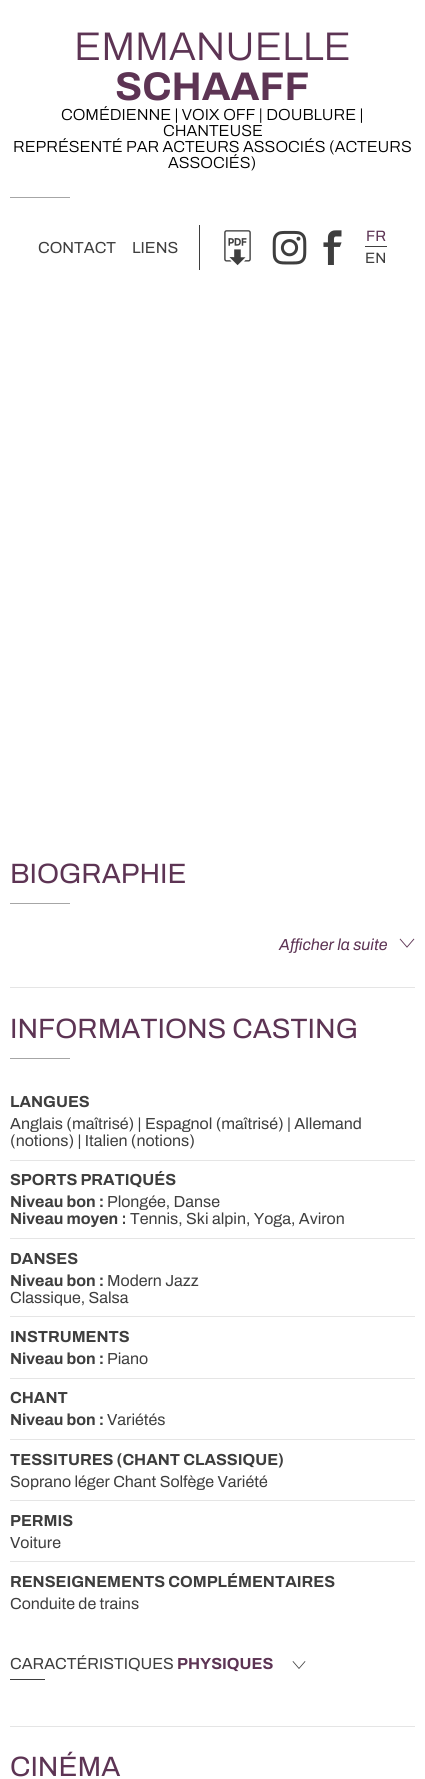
#include <cairo.h>
#include <math.h>
#include <stddef.h>

typedef struct { const char *family; double size; int italic, bold; unsigned color; } style_t;
static cairo_t *ctx;

static void ink(unsigned color) {
    cairo_set_source_rgb(ctx, (color >> 16) / 255.0, (color >> 8 & 255) / 255.0, (color & 255) / 255.0);
}

static void write(double x, double y, const char *s, const style_t *st) {
    cairo_select_font_face(ctx, st->family, st->italic ? CAIRO_FONT_SLANT_ITALIC : CAIRO_FONT_SLANT_NORMAL,
        st->bold ? CAIRO_FONT_WEIGHT_BOLD : CAIRO_FONT_WEIGHT_NORMAL);
    cairo_set_font_size(ctx, st->size);
    ink(st->color);
    cairo_move_to(ctx, x, y);
    cairo_show_text(ctx, s);
}

static void block(double x, double y, double w, double h, unsigned color) {
    ink(color);
    cairo_rectangle(ctx, x, y, w, h);
    cairo_fill(ctx);
}

static void paste(const char *path, double x, double y, double w, double h) {
    cairo_surface_t *image = cairo_image_surface_create_from_png(path);
    cairo_save(ctx);
    cairo_set_source_surface(ctx, image, x, y);
    cairo_rectangle(ctx, x, y, w, h);
    cairo_fill(ctx);
    cairo_restore(ctx);
    cairo_surface_destroy(image);
}

static const style_t s1 = {"Archivo Light", 40, 0, 0, 0x5d3454};
static const style_t s2 = {"Archivo", 40, 0, 1, 0x5d3454};
static const style_t s3 = {"Archivo Light", 16, 0, 0, 0x000000};
static const style_t s4 = {"Archivo", 16, 0, 0, 0x3e3e3e};
static const style_t s5 = {"Archivo", 15, 0, 0, 0x5d3454};
static const style_t s6 = {"Archivo", 15, 0, 0, 0x3e3e3e};
static const style_t s7 = {"Archivo", 28, 0, 0, 0x5d3454};
static const style_t s8 = {"Archivo", 16, 1, 0, 0x5d3454};
static const style_t s9 = {"Archivo", 16, 0, 1, 0x3e3e3e};
static const style_t s10 = {"Archivo", 16, 0, 1, 0x5d3454};

int main(void) {
    cairo_surface_t *surface = cairo_image_surface_create(CAIRO_FORMAT_RGB24, 425, 1779);
    ctx = cairo_create(surface);
    cairo_font_options_t *options = cairo_font_options_create();
    cairo_font_options_set_hint_metrics(options, CAIRO_HINT_METRICS_OFF);
    cairo_font_options_set_hint_style(options, CAIRO_HINT_STYLE_NONE);
    cairo_set_font_options(ctx, options);
    cairo_set_miter_limit(ctx, 4);
    ink(0xffffff);
    cairo_paint(ctx);
    write(74, 60, "EMMANUELLE", &s1);
    write(115, 100, "SCHAAFF", &s2);
    write(61, 120, "COMÉDIENNE | VOIX OFF | DOUBLURE |", &s3);
    write(163, 136, "CHANTEUSE", &s3);
    write(13, 152, "REPRÉSENTÉ PAR ACTEURS ASSOCIÉS (ACTEURS", &s3);
    write(168, 168, "ASSOCIÉS)", &s3);
    block(10, 197, 60, 1, 0xa6a6a6);
    write(38, 253, "CONTACT", &s4);
    write(132, 253, "LIENS", &s4);
    block(199, 225, 1, 45, 0x3e3e3e);
    paste("pic1.png", 224, 230, 27, 36);
    paste("pic2.png", 272, 230, 35, 35);
    paste("pic3.png", 323, 230, 19, 35);
    write(366, 241, "FR", &s5);
    block(365, 246, 22, 1, 0x3e3e3e);
    write(365, 263, "EN", &s6);
    write(10, 883, "BIOGRAPHIE", &s7);
    block(10, 903, 60, 1, 0xa6a6a6);
    write(279, 950, "Afficher la suite", &s8);
    paste("pic4.png", 399, 938, 16, 10);
    block(10, 987, 405, 1, 0xe5e5e5);
    write(10, 1038, "INFORMATIONS CASTING", &s7);
    block(10, 1058, 60, 1, 0xa6a6a6);
    block(10, 1160, 405, 1, 0xe5e5e5);
    write(10, 1107, "LANGUES", &s9);
    write(10, 1129, "Anglais (maîtrisé) | Espagnol (maîtrisé) | Allemand", &s4);
    write(10, 1146, "(notions) | Italien (notions)", &s4);
    block(10, 1238, 405, 1, 0xe5e5e5);
    write(10, 1185, "SPORTS PRATIQUÉS", &s9);
    write(10, 1207, "Niveau bon :", &s9);
    write(107, 1207, "Plongée, Danse", &s4);
    write(10, 1224, "Niveau moyen :", &s9);
    write(130, 1224, "Tennis, Ski alpin, Yoga, Aviron", &s4);
    block(10, 1316, 405, 1, 0xe5e5e5);
    write(10, 1264, "DANSES", &s9);
    write(10, 1286, "Niveau bon :", &s9);
    write(107, 1286, "Modern Jazz", &s4);
    write(10, 1303, "Classique, Salsa", &s4);
    block(10, 1378, 405, 1, 0xe5e5e5);
    write(10, 1342, "INSTRUMENTS", &s9);
    write(10, 1364, "Niveau bon :", &s9);
    write(107, 1364, "Piano", &s4);
    block(10, 1439, 405, 1, 0xe5e5e5);
    write(10, 1403, "CHANT", &s9);
    write(10, 1425, "Niveau bon :", &s9);
    write(107, 1425, "Variétés", &s4);
    block(10, 1500, 405, 1, 0xe5e5e5);
    write(10, 1465, "TESSITURES (CHANT CLASSIQUE)", &s9);
    write(10, 1487, "Soprano léger Chant Solfège Variété", &s4);
    block(10, 1561, 405, 1, 0xe5e5e5);
    write(10, 1526, "PERMIS", &s9);
    write(10, 1548, "Voiture", &s4);
    write(10, 1587, "RENSEIGNEMENTS COMPLÉMENTAIRES", &s9);
    write(10, 1609, "Conduite de trains", &s4);
    write(10, 1669, "CARACTÉRISTIQUES", &s4);
    write(177, 1669, "PHYSIQUES", &s10);
    paste("pic5.png", 292, 1661, 14, 8);
    block(10, 1679, 35, 1, 0x3e3e3e);
    block(10, 1726, 405, 1, 0xe5e5e5);
    write(10, 1776, "CINÉMA", &s7);
    cairo_surface_write_to_png(surface, "screenshot.png");
    cairo_font_options_destroy(options);
    cairo_destroy(ctx);
    cairo_surface_destroy(surface);
    return 0;
}
